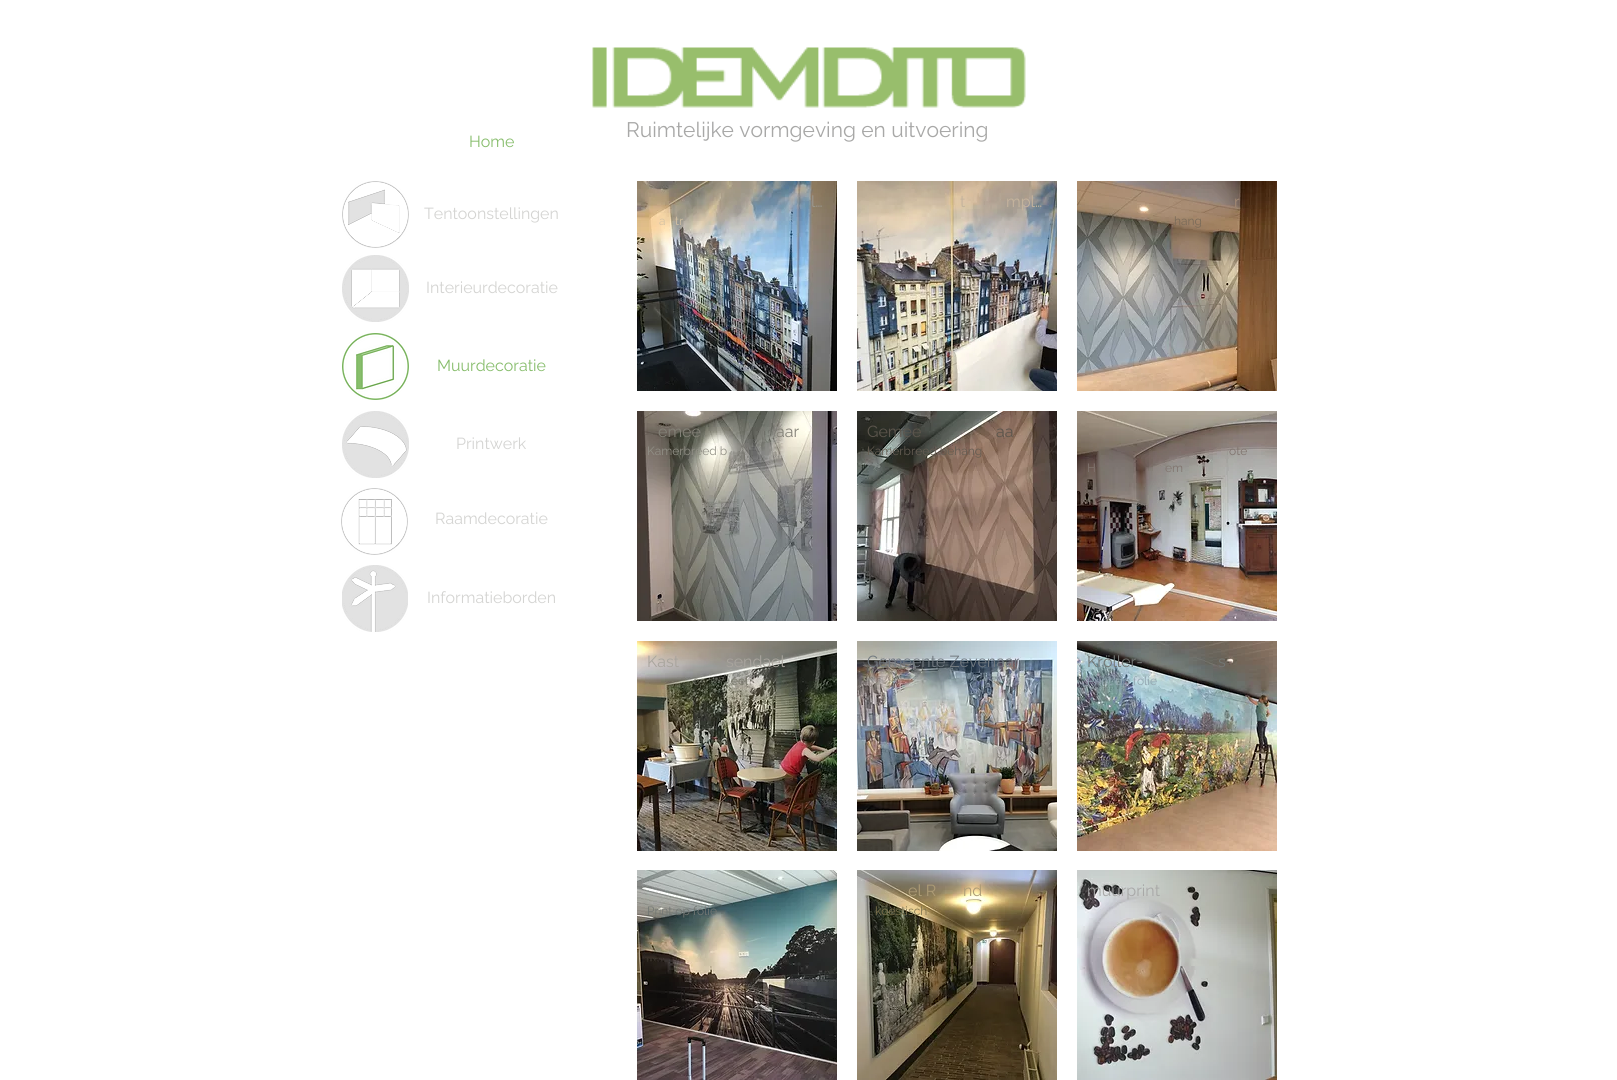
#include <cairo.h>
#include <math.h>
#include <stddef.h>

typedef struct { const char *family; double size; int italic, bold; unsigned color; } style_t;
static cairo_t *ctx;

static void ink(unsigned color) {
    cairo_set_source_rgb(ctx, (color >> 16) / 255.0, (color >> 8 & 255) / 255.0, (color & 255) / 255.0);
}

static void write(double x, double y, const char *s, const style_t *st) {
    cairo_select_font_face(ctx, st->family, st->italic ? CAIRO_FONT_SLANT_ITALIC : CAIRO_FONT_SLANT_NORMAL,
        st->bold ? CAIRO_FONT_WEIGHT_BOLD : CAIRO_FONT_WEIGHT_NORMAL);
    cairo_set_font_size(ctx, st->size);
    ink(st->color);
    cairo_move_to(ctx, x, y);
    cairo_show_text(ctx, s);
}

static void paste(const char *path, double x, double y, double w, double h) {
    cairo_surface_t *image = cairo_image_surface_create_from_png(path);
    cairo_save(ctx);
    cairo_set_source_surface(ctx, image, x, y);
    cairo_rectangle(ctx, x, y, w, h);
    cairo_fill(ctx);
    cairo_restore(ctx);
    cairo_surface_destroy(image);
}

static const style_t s1 = {"Raleway", 21, 0, 0, 0xa8a8a7};
static const style_t s2 = {"Raleway", 16, 0, 0, 0x87bd6c};
static const style_t s3 = {"Raleway", 16, 0, 0, 0xd4d4d2};
static const style_t s4 = {"Raleway", 16, 0, 0, 0x9a988f};
static const style_t s5 = {"Raleway", 12, 0, 0, 0xd5c2a4};
static const style_t s6 = {"Raleway", 16, 0, 0, 0xc4b39d};
static const style_t s7 = {"Raleway", 16, 0, 0, 0xa48a74};
static const style_t s8 = {"Raleway", 12, 0, 0, 0x7a6b59};
static const style_t s9 = {"Raleway", 16, 0, 0, 0x838177};
static const style_t s10 = {"Raleway", 12, 0, 0, 0x918f86};
static const style_t s11 = {"Raleway", 16, 0, 0, 0x5c564d};
static const style_t s12 = {"Raleway", 12, 0, 0, 0x655d53};
static const style_t s13 = {"Raleway", 12, 0, 0, 0x80746e};
static const style_t s14 = {"Raleway", 16, 0, 0, 0xa8a49d};
static const style_t s15 = {"Raleway", 12, 0, 0, 0x757567};
static const style_t s16 = {"Raleway", 16, 0, 0, 0x717980};
static const style_t s17 = {"Raleway", 16, 0, 0, 0x737774};
static const style_t s18 = {"Raleway", 12, 0, 0, 0x92a6b0};
static const style_t s19 = {"Raleway", 16, 0, 0, 0xad9c76};
static const style_t s20 = {"Raleway", 12, 0, 0, 0x7d724e};
static const style_t s21 = {"Raleway", 16, 0, 0, 0xa8a8a7};
static const style_t s22 = {"Raleway", 12, 0, 0, 0x737774};

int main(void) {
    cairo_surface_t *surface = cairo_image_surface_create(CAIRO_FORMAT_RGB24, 1617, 1080);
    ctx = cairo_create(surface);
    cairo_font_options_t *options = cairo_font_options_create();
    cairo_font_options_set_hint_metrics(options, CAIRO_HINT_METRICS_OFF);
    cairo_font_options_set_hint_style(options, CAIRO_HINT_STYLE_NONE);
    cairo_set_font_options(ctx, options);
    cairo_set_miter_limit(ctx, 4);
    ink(0xffffff);
    cairo_paint(ctx);
    paste("pic1.png", 592, 47, 434, 61);
    write(626, 137, "Ruimtelijke vormgeving en uitvoering", &s1);
    write(469, 147, "Home", &s2);
    paste("pic2.png", 342, 181, 67, 67);
    write(424, 219, "Tentoonstellingen", &s3);
    paste("pic3.png", 637, 181, 200, 210);
    write(811, 207, "l…", &s4);
    write(659, 225, "a", &s5);
    write(675, 225, "tr", &s5);
    paste("pic4.png", 857, 181, 200, 210);
    write(960, 207, "t", &s6);
    write(1006, 207, "mpl…", &s6);
    paste("pic5.png", 1077, 181, 200, 210);
    write(1234, 207, "r", &s7);
    write(1174, 225, "hang", &s8);
    paste("pic6.png", 637, 411, 200, 210);
    write(658, 437, "emee", &s9);
    write(776, 437, "aar", &s9);
    write(647, 455, "Kamerbreed b", &s10);
    paste("pic7.png", 857, 411, 200, 210);
    write(867, 437, "Gemee", &s11);
    write(996, 437, "aa", &s11);
    write(867, 455, "Kamerbreed behang", &s12);
    paste("pic8.png", 1077, 411, 200, 210);
    write(1229, 455, "ote", &s13);
    write(1087, 472, "H", &s13);
    write(1165, 472, "em", &s13);
    paste("pic9.png", 637, 641, 200, 210);
    write(647, 667, "Kast", &s14);
    write(726, 667, "sendael", &s14);
    write(693, 685, "c", &s15);
    write(731, 685, "eel", &s15);
    paste("pic10.png", 857, 641, 200, 210);
    write(867, 667, "Gemeente Zevenaar", &s16);
    paste("pic11.png", 1077, 641, 200, 210);
    write(1087, 667, "Kröller-", &s17);
    write(1218, 667, "s", &s17);
    write(1087, 685, "Print op folie", &s18);
    paste("pic12.png", 857, 870, 200, 210);
    write(908, 896, "el R", &s19);
    write(963, 896, "nd", &s19);
    write(875, 915, "koestisch", &s20);
    paste("pic13.png", 1077, 870, 200, 210);
    write(1087, 896, "muurprint", &s21);
    paste("pic14.png", 637, 870, 200, 210);
    write(647, 915, "Print op folie", &s22);
    paste("pic15.png", 342, 255, 67, 67);
    write(426, 293, "Interieurdecoratie", &s3);
    paste("pic16.png", 342, 333, 67, 67);
    write(437, 371, "Muurdecoratie", &s2);
    paste("pic17.png", 342, 411, 67, 67);
    write(456, 449, "Printwerk", &s3);
    paste("pic18.png", 341, 488, 67, 67);
    write(435, 524, "Raamdecoratie", &s3);
    paste("pic19.png", 342, 565, 66, 67);
    write(427, 603, "Informatieborden", &s3);
    cairo_surface_write_to_png(surface, "screenshot.png");
    cairo_font_options_destroy(options);
    cairo_destroy(ctx);
    cairo_surface_destroy(surface);
    return 0;
}
